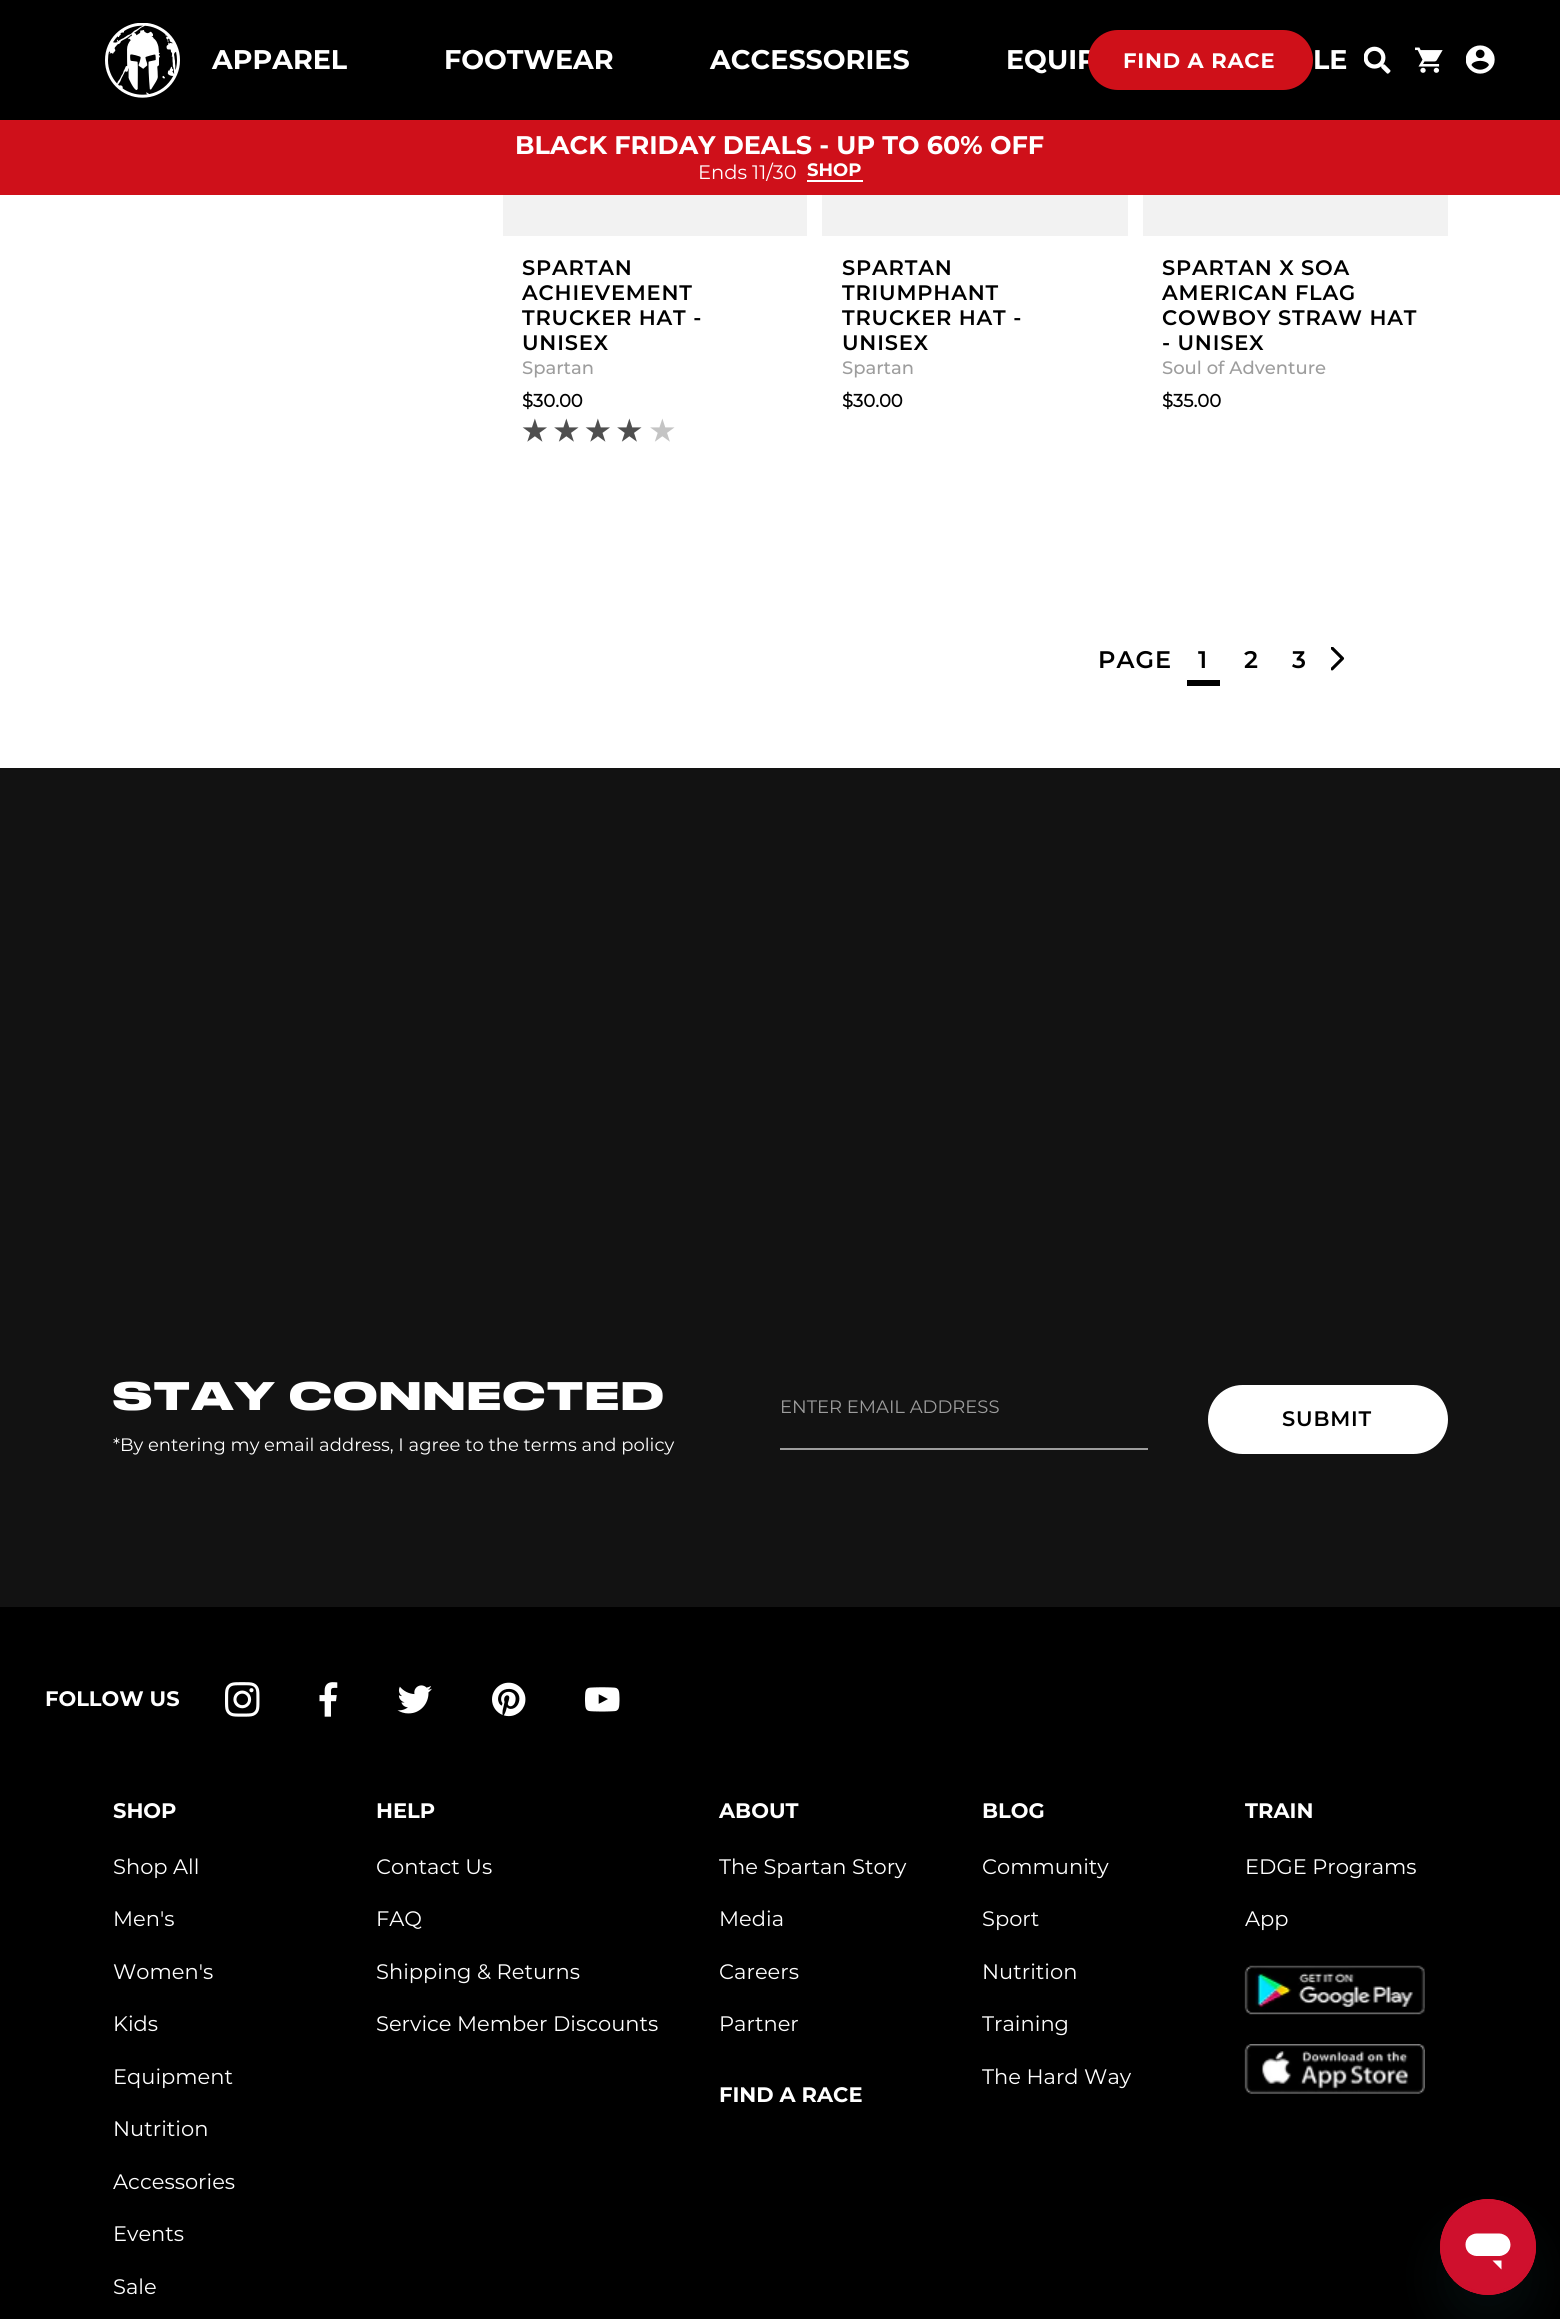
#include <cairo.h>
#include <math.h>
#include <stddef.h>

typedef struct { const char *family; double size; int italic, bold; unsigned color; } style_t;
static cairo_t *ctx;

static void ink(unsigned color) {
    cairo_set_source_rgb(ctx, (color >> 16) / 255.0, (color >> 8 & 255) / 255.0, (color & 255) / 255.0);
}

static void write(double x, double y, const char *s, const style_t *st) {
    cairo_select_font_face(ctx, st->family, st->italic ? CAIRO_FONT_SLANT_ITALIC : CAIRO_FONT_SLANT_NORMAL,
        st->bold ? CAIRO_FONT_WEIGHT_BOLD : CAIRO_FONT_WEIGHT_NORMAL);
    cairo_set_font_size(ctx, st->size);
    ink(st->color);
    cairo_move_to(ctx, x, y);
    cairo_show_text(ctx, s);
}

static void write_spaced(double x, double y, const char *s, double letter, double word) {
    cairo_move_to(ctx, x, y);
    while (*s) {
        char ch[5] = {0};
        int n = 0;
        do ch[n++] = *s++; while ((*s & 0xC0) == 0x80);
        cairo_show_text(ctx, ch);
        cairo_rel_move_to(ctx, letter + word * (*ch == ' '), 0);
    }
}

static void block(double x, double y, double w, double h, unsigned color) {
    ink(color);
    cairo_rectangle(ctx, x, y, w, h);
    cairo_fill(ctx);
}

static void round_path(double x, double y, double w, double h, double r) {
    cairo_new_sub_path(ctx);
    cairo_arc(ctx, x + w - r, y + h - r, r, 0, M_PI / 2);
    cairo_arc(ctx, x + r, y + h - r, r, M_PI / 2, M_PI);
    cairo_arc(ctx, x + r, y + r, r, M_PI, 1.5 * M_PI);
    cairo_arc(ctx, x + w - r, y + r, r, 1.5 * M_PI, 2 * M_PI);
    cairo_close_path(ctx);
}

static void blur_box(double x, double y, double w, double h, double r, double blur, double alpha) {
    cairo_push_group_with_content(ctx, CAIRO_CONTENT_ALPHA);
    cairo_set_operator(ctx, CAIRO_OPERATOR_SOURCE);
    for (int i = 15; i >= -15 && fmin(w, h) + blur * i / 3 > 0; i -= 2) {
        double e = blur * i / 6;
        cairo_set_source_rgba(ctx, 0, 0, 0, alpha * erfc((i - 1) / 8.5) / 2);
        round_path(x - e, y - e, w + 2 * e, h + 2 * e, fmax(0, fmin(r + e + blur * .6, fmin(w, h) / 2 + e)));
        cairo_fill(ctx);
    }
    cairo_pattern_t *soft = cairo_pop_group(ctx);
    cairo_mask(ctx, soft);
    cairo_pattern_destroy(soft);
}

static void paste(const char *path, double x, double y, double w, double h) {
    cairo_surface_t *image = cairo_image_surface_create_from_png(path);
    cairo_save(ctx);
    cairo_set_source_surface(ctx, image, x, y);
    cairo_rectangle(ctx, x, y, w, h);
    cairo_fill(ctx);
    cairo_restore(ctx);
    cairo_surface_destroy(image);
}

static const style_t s1 = {"Montserrat", 27, 0, 1, 0xffffff};
static const style_t s2 = {"Montserrat", 25.5, 0, 1, 0xffffff};
static const style_t s3 = {"Montserrat", 19.5, 0, 0, 0xffffff};
static const style_t s4 = {"Montserrat", 18, 0, 1, 0xffffff};
static const style_t s5 = {"Montserrat Medium", 18, 0, 0, 0x9d9d9d};
static const style_t s6 = {"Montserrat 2", 18, 0, 1, 0x000000};
static const style_t s7 = {"Montserrat", 18, 0, 0, 0xffffff};
static const style_t s8 = {"Montserrat", 18, 0, 0, 0x9d9d9d};
static const style_t s9 = {"Montserrat", 21, 0, 1, 0xffffff};
static const style_t s10 = {"Montserrat", 21, 0, 0, 0xffffff};

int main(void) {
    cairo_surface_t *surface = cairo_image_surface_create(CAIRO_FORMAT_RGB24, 1560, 2319);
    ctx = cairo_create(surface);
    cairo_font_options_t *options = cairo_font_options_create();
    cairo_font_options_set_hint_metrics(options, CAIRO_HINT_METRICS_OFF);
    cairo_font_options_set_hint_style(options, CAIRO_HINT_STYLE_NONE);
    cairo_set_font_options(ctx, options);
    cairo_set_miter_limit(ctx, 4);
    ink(0xffffff);
    cairo_paint(ctx);
    block(0, 0, 1560, 120, 0x000000);
    paste("pic1.png", 105, 23, 75, 75);
    write(212, 69, "APPAREL", &s1);
    write(444, 69, "FOOTWEAR", &s1);
    write(710, 69, "ACCESSORIES", &s1);
    write(1006, 69, "EQUIP", &s1);
    write(1313, 69, "LE", &s1);
    paste("pic2.png", 1364, 46, 27, 28);
    paste("pic3.png", 1415, 47, 28, 26);
    paste("pic4.png", 1466, 45, 29, 29);
    ink(0xcf1019);
    round_path(1088, 30, 225, 60, 30);
    cairo_fill(ctx);
    cairo_set_font_size(ctx, 21);
    ink(0xffffff);
    write_spaced(1123, 68, "FIND A RACE", 0.8, 0);
    block(0, 120, 1560, 75, 0xcf101a);
    write(515, 154, "BLACK FRIDAY DEALS - UP TO 60% OFF", &s2);
    write(698, 179, "Ends 11/30", &s3);
    block(807, 180, 56, 2, 0xffffff);
    write(807, 176, "SHOP", &s4);
    block(503, 195, 304, 41, 0xf2f2f2);
    cairo_select_font_face(ctx, "Montserrat SemiBold", CAIRO_FONT_SLANT_NORMAL, CAIRO_FONT_WEIGHT_NORMAL);
    cairo_set_font_size(ctx, 21);
    ink(0x000000);
    write_spaced(522, 275, "SPARTAN", 0.8, 0);
    write_spaced(522, 300, "ACHIEVEMENT", 0.8, 0);
    write_spaced(522, 325, "TRUCKER HAT -", 0.8, 0);
    write_spaced(522, 350, "UNISEX", 0.8, 0);
    write(522, 374, "Spartan", &s5);
    write(522, 407, "$30.00", &s6);
    paste("pic5.png", 522, 418, 25, 24);
    paste("pic6.png", 554, 418, 25, 24);
    paste("pic5.png", 585, 418, 25, 24);
    paste("pic6.png", 617, 418, 25, 24);
    paste("pic7.png", 650, 418, 25, 24);
    block(822, 195, 306, 41, 0xf2f2f2);
    cairo_select_font_face(ctx, "Montserrat SemiBold", CAIRO_FONT_SLANT_NORMAL, CAIRO_FONT_WEIGHT_NORMAL);
    cairo_set_font_size(ctx, 21);
    ink(0x000000);
    write_spaced(842, 275, "SPARTAN", 0.8, 0);
    write_spaced(842, 300, "TRIUMPHANT", 0.8, 0);
    write_spaced(842, 325, "TRUCKER HAT -", 0.8, 0);
    write_spaced(842, 350, "UNISEX", 0.8, 0);
    write(842, 374, "Spartan", &s5);
    write(842, 407, "$30.00", &s6);
    block(1143, 195, 305, 41, 0xf2f2f2);
    cairo_select_font_face(ctx, "Montserrat SemiBold", CAIRO_FONT_SLANT_NORMAL, CAIRO_FONT_WEIGHT_NORMAL);
    cairo_set_font_size(ctx, 21);
    ink(0x000000);
    write_spaced(1162, 275, "SPARTAN X SOA", 0.8, 0);
    write_spaced(1162, 300, "AMERICAN FLAG", 0.8, 0);
    write_spaced(1162, 325, "COWBOY STRAW HAT", 0.8, 0);
    write_spaced(1162, 350, "- UNISEX", 0.8, 0);
    write(1162, 374, "Soul of Adventure", &s5);
    write(1162, 407, "$35.00", &s6);
    cairo_select_font_face(ctx, "Montserrat SemiBold", CAIRO_FONT_SLANT_NORMAL, CAIRO_FONT_WEIGHT_NORMAL);
    cairo_set_font_size(ctx, 24);
    write_spaced(1098, 668, "PAGE", 1, 0);
    write_spaced(1198, 668, "1", 1, 0);
    block(1187, 680, 33, 6, 0x000000);
    write_spaced(1244, 668, "2", 1, 0);
    write_spaced(1292, 668, "3", 1, 0);
    paste("pic8.png", 1331, 647, 14, 24);
    block(0, 1607, 1560, 712, 0x000000);
    block(0, 768, 1560, 839, 0x121212);
    cairo_select_font_face(ctx, "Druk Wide", CAIRO_FONT_SLANT_NORMAL, CAIRO_FONT_WEIGHT_BOLD);
    cairo_set_font_size(ctx, 37.5);
    ink(0xffffff);
    write_spaced(113, 1410, "STAY CONNECTED", 1.9, 0);
    write(113, 1451, "*By entering my email address, I agree to the terms and policy", &s7);
    block(780, 1448, 368, 2, 0x9d9d9d);
    write(780, 1413, "ENTER EMAIL ADDRESS", &s8);
    ink(0xffffff);
    round_path(1209, 1386, 238, 67, 33.5);
    cairo_fill_preserve(ctx);
    cairo_stroke(ctx);
    cairo_select_font_face(ctx, "Montserrat SemiBold", CAIRO_FONT_SLANT_NORMAL, CAIRO_FONT_WEIGHT_NORMAL);
    cairo_set_font_size(ctx, 21);
    ink(0x000000);
    write_spaced(1282, 1426, "SUBMIT", 0.8, 0);
    write(45, 1706, "FOLLOW US", &s9);
    paste("pic9.png", 225, 1682, 35, 35);
    paste("pic10.png", 319, 1682, 19, 35);
    paste("pic11.png", 397, 1685, 35, 29);
    paste("pic12.png", 492, 1682, 34, 35);
    paste("pic13.png", 585, 1687, 35, 25);
    write(113, 1818, "SHOP", &s9);
    write(113, 1874, "Shop All", &s10);
    write(113, 1926, "Men's", &s10);
    write(113, 1979, "Women's", &s10);
    write(113, 2031, "Kids", &s10);
    write(113, 2084, "Equipment", &s10);
    write(113, 2136, "Nutrition", &s10);
    write(113, 2189, "Accessories", &s10);
    write(113, 2241, "Events", &s10);
    write(113, 2294, "Sale", &s10);
    write(376, 1818, "HELP", &s9);
    write(376, 1874, "Contact Us", &s10);
    write(376, 1926, "FAQ", &s10);
    write(376, 1979, "Shipping & Returns", &s10);
    write(376, 2031, "Service Member Discounts", &s10);
    write(719, 1818, "ABOUT", &s9);
    write(719, 1874, "The Spartan Story", &s10);
    write(719, 1926, "Media", &s10);
    write(719, 1979, "Careers", &s10);
    write(719, 2031, "Partner", &s10);
    write(719, 2102, "FIND A RACE", &s9);
    write(982, 1818, "BLOG", &s9);
    write(982, 1874, "Community", &s10);
    write(982, 1926, "Sport", &s10);
    write(982, 1979, "Nutrition", &s10);
    write(982, 2031, "Training", &s10);
    write(982, 2084, "The Hard Way", &s10);
    write(1245, 1818, "TRAIN", &s9);
    write(1245, 1874, "EDGE Programs", &s10);
    write(1245, 1926, "App", &s10);
    paste("pic14.png", 1244, 1965, 181, 50);
    paste("pic15.png", 1244, 2044, 181, 50);
    ink(0x17494d);
    blur_box(1440, 2229, 96, 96, 48, 22.5, 0.15);
    paste("pic16.png", 1440, 2199, 96, 96);
    cairo_surface_write_to_png(surface, "screenshot.png");
    cairo_font_options_destroy(options);
    cairo_destroy(ctx);
    cairo_surface_destroy(surface);
    return 0;
}
